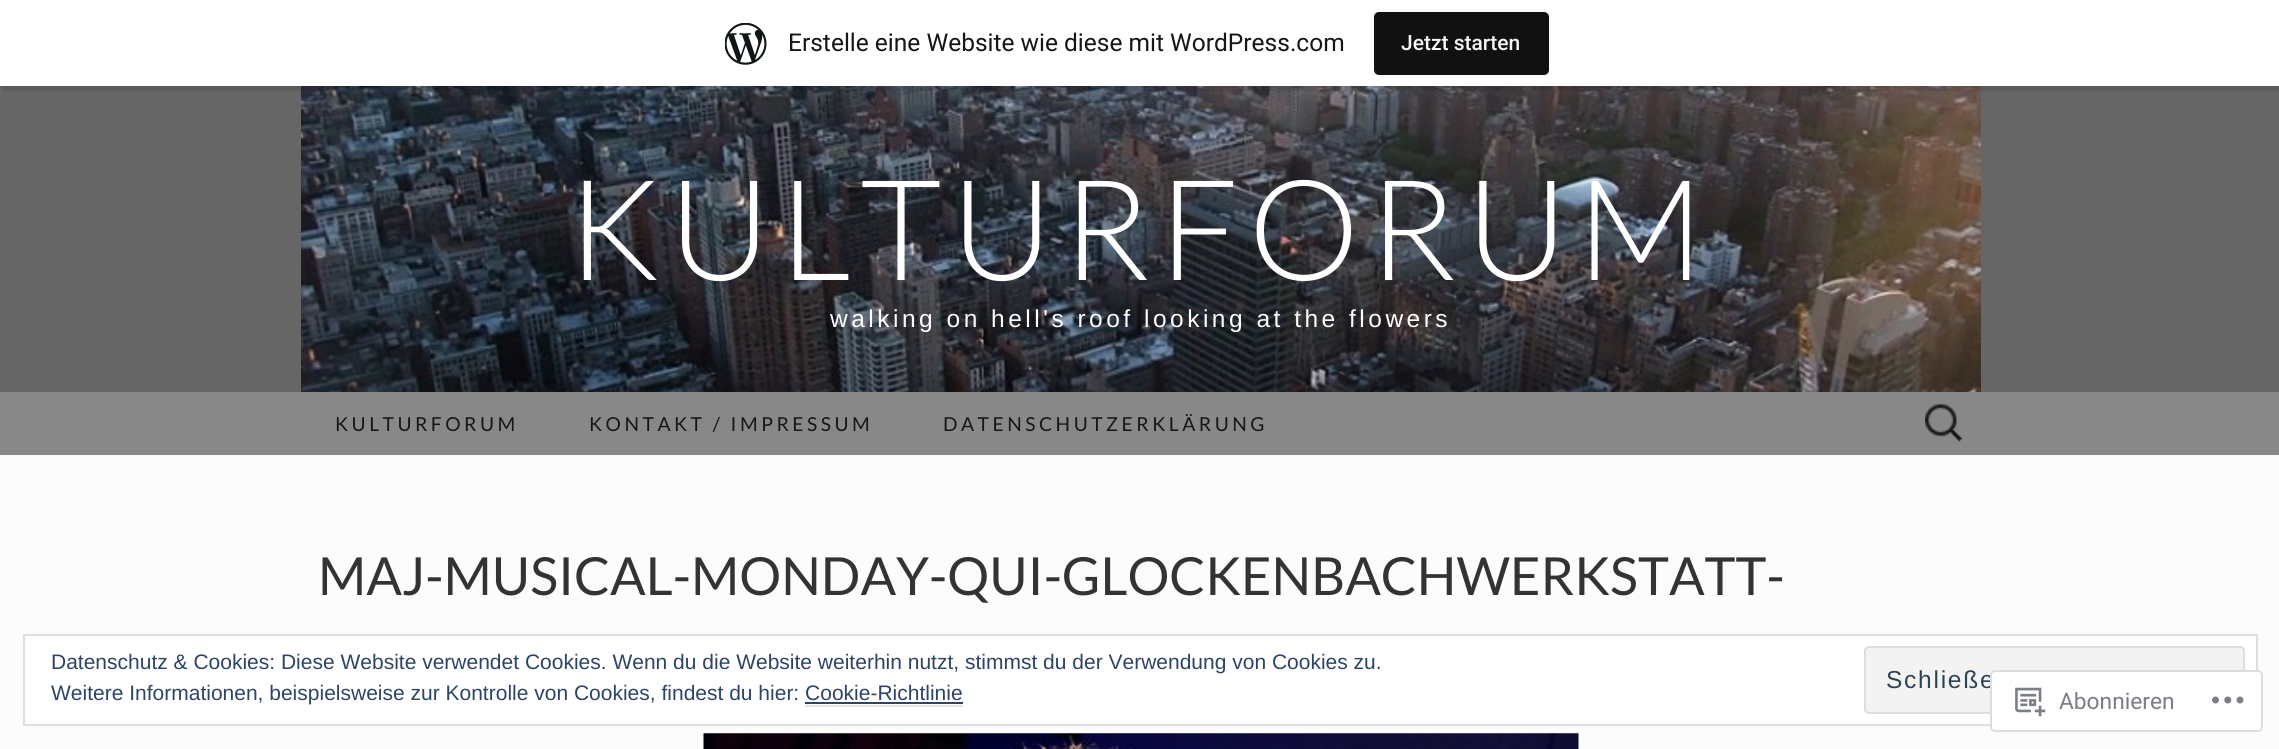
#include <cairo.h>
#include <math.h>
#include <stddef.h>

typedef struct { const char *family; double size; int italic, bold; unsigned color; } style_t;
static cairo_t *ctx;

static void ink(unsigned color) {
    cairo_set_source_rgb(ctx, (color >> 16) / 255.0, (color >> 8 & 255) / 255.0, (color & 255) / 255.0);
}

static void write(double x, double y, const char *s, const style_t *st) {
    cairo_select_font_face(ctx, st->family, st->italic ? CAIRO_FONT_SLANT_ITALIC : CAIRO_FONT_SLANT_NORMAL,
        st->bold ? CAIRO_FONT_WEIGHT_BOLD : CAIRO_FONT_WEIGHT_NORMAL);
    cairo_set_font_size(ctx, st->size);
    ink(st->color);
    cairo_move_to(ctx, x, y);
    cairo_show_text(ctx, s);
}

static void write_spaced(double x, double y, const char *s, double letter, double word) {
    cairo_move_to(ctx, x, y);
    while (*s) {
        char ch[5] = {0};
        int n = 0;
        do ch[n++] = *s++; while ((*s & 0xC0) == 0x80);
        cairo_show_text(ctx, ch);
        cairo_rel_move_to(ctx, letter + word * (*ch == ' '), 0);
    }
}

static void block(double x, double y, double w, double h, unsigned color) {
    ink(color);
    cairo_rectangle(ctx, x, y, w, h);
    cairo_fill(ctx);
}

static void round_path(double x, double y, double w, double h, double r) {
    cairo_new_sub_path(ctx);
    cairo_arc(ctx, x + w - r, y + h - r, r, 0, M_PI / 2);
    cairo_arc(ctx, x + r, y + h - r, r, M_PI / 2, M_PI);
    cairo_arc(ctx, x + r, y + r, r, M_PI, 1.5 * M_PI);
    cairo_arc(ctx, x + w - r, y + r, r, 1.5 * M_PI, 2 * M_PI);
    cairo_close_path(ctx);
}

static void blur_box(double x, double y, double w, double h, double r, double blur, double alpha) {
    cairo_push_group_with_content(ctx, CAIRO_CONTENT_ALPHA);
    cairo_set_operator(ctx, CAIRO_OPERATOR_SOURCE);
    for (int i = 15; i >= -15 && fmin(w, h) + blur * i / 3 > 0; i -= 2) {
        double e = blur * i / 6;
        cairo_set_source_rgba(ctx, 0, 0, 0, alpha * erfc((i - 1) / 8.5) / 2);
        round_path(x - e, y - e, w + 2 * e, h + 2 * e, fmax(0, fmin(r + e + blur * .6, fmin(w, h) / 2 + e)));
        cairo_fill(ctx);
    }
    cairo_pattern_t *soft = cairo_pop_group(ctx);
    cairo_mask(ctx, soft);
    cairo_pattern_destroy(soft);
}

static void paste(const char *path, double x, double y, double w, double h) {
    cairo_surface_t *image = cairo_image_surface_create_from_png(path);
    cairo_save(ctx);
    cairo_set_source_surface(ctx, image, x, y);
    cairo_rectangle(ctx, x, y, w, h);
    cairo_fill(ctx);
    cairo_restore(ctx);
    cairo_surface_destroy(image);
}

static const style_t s1 = {"Roboto", 24.5, 0, 0, 0x161616};
static const style_t s2 = {"Roboto Medium", 21, 0, 0, 0xf6f7f7};
static const style_t s3 = {"Lato", 52.5, 0, 0, 0x333333};
static const style_t s4 = {"Liberation Sans", 21, 0, 0, 0x2e4467};
static const style_t s5 = {"Roboto", 22.75, 0, 0, 0x7a7e84};

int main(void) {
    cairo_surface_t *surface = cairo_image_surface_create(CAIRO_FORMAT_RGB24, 2279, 749);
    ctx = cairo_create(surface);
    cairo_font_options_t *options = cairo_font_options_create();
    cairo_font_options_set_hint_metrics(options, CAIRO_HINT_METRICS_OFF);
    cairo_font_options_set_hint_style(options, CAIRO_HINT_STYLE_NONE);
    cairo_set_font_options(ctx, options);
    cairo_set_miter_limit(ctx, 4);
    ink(0xfcfcfc);
    cairo_paint(ctx);
    block(0, 86, 2279, 306, 0x666666);
    paste("pic2.png", 301, 86, 1680, 306);
    ink(0x000000);
    blur_box(0, 2, 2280, 86, 0, 2, 0.05);
    cairo_set_source_rgba(ctx, 0, 0, 0, 0.08);
    cairo_new_path(ctx);
    cairo_move_to(ctx, 2, 86);
    cairo_line_to(ctx, 2, 91);
    cairo_line_to(ctx, 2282, 91);
    cairo_line_to(ctx, 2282, 5);
    cairo_line_to(ctx, 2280, 5);
    cairo_line_to(ctx, 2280, 86);
    cairo_close_path(ctx);
    cairo_fill(ctx);
    block(0, 0, 2279, 86, 0xffffff);
    paste("pic1.png", 725, 23, 42, 42);
    write(788, 51, "Erstelle eine Website wie diese mit WordPress.com", &s1);
    ink(0x111111);
    round_path(1374, 12, 175, 63, 5);
    cairo_fill(ctx);
    write(1401, 50, "Jetzt starten", &s2);
    cairo_select_font_face(ctx, "Lato Light", CAIRO_FONT_SLANT_NORMAL, CAIRO_FONT_WEIGHT_NORMAL);
    cairo_set_font_size(ctx, 140);
    ink(0xffffff);
    write_spaced(567, 280, "KULTURFORUM", 8.75, 0);
    cairo_select_font_face(ctx, "Liberation Sans", CAIRO_FONT_SLANT_NORMAL, CAIRO_FONT_WEIGHT_NORMAL);
    cairo_set_font_size(ctx, 24.5);
    write_spaced(830, 327, "walking on hell's roof looking at the flowers", 3.5, 0);
    block(0, 392, 2279, 63, 0x888888);
    cairo_select_font_face(ctx, "Lato", CAIRO_FONT_SLANT_NORMAL, CAIRO_FONT_WEIGHT_NORMAL);
    cairo_set_font_size(ctx, 19.25);
    ink(0x161616);
    write_spaced(335, 431, "KULTURFORUM", 3.5, 0);
    write_spaced(589, 431, "KONTAKT / IMPRESSUM", 3.5, 0);
    write_spaced(943, 431, "DATENSCHUTZERKLÄRUNG", 3.5, 0);
    paste("pic3.png", 1925, 403, 38, 39);
    write(318, 595, "MAJ-MUSICAL-MONDAY-QUI-GLOCKENBACHWERKSTATT-", &s3);
    paste("pic4.png", 703, 733, 876, 16);
    ink(0xffffff);
    cairo_rectangle(ctx, 24, 635, 2233, 90);
    cairo_fill_preserve(ctx);
    ink(0xdedede);
    cairo_stroke(ctx);
    write(51, 669, "Datenschutz & Cookies: Diese Website verwendet Cookies. Wenn du die Website weiterhin nutzt, stimmst du der Verwendung von Cookies zu.", &s4);
    ink(0xf3f3f3);
    round_path(1865, 647, 379, 66, 4);
    cairo_fill_preserve(ctx);
    ink(0xdedede);
    cairo_stroke(ctx);
    cairo_set_font_size(ctx, 24.5);
    ink(0x2e4453);
    write_spaced(1886, 688, "Schließe", 1.75, 0);
    write(51, 700, "Weitere Informationen, beispielsweise zur Kontrolle von Cookies, findest du hier: Cookie-Richtlinie", &s4);
    block(805, 702, 158, 2, 0x2e4467);
    block(805, 705, 158, 2, 0xe6e6e6);
    cairo_set_source_rgba(ctx, 1, 1, 1, 0.98);
    round_path(1990, 670, 273, 62, 5);
    cairo_fill(ctx);
    round_path(1991, 671, 271, 60, 4);
    cairo_set_source_rgba(ctx, 0.863, 0.863, 0.871, 0.98);
    cairo_stroke(ctx);
    paste("pic5.png", 2015, 687, 31, 30);
    write(2059, 709, "Abonnieren", &s5);
    paste("pic6.png", 2212, 696, 32, 8);
    cairo_surface_write_to_png(surface, "screenshot.png");
    cairo_font_options_destroy(options);
    cairo_destroy(ctx);
    cairo_surface_destroy(surface);
    return 0;
}
